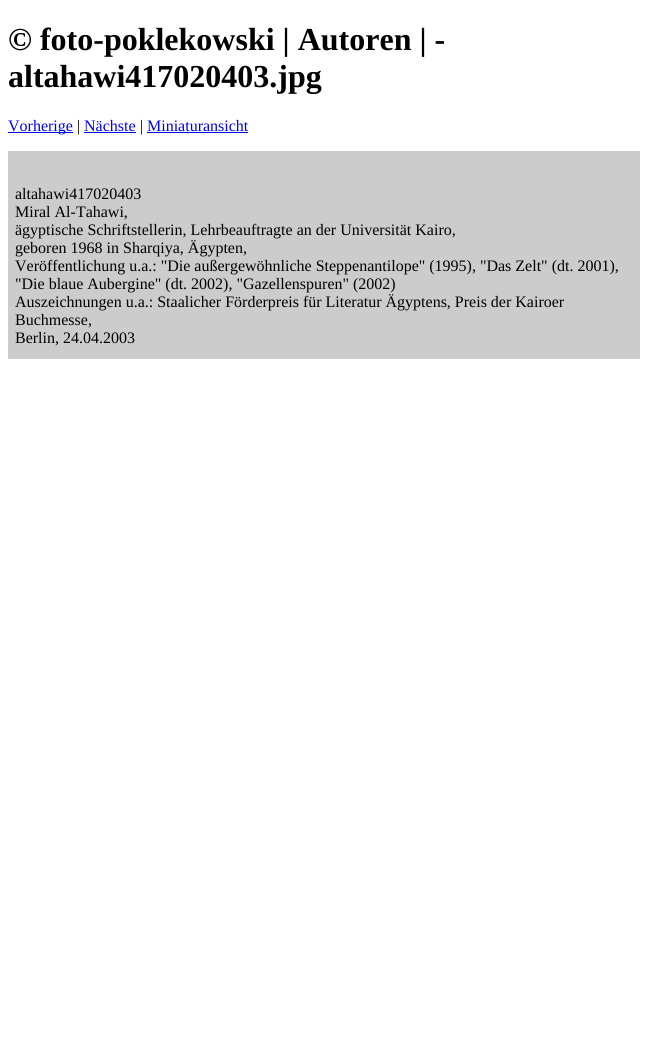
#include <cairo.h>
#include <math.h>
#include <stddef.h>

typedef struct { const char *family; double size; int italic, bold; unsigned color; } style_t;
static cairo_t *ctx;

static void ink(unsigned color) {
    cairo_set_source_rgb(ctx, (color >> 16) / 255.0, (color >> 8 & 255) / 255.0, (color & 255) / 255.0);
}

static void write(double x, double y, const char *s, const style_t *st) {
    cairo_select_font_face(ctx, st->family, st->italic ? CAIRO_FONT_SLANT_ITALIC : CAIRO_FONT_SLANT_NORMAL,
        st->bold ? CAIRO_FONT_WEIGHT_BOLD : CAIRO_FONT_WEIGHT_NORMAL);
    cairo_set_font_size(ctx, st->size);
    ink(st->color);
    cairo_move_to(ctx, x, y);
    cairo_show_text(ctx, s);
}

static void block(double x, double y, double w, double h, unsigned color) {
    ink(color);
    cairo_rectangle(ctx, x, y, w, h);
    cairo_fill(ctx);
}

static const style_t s1 = {"Liberation Serif", 32, 0, 1, 0x000000};
static const style_t s2 = {"Liberation Serif", 16, 0, 0, 0x0000ee};
static const style_t s3 = {"Liberation Serif", 16, 0, 0, 0x000000};

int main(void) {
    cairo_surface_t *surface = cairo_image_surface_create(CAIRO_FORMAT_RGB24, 648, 1052);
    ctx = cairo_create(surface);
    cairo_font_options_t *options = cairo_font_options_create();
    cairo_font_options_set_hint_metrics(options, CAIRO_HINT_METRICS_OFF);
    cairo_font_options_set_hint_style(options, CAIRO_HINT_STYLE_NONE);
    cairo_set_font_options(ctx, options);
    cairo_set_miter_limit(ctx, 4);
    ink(0xffffff);
    cairo_paint(ctx);
    write(8, 50, "© foto-poklekowski | Autoren | -", &s1);
    write(8, 87, "altahawi417020403.jpg", &s1);
    block(8, 132, 65, 1, 0x0000ee);
    write(8, 131, "Vorherige", &s2);
    write(77, 131, "|", &s3);
    write(84, 131, "Nächste", &s2);
    block(84, 132, 52, 1, 0x0000ee);
    write(140, 131, "|", &s3);
    write(147, 131, "Miniaturansicht", &s2);
    block(147, 132, 101, 1, 0x0000ee);
    block(8, 151, 632, 208, 0xcccccc);
    write(15, 199, "altahawi417020403", &s3);
    write(15, 217, "Miral Al-Tahawi,", &s3);
    write(15, 235, "ägyptische Schriftstellerin, Lehrbeauftragte an der Universität Kairo,", &s3);
    write(15, 253, "geboren 1968 in Sharqiya, Ägypten,", &s3);
    write(15, 271, "Veröffentlichung u.a.: \"Die außergewöhnliche Steppenantilope\" (1995), \"Das Zelt\" (dt. 2001),", &s3);
    write(15, 289, "\"Die blaue Aubergine\" (dt. 2002), \"Gazellenspuren\" (2002)", &s3);
    write(15, 307, "Auszeichnungen u.a.: Staalicher Förderpreis für Literatur Ägyptens, Preis der Kairoer", &s3);
    write(15, 325, "Buchmesse,", &s3);
    write(15, 343, "Berlin, 24.04.2003", &s3);
    cairo_surface_write_to_png(surface, "screenshot.png");
    cairo_font_options_destroy(options);
    cairo_destroy(ctx);
    cairo_surface_destroy(surface);
    return 0;
}
